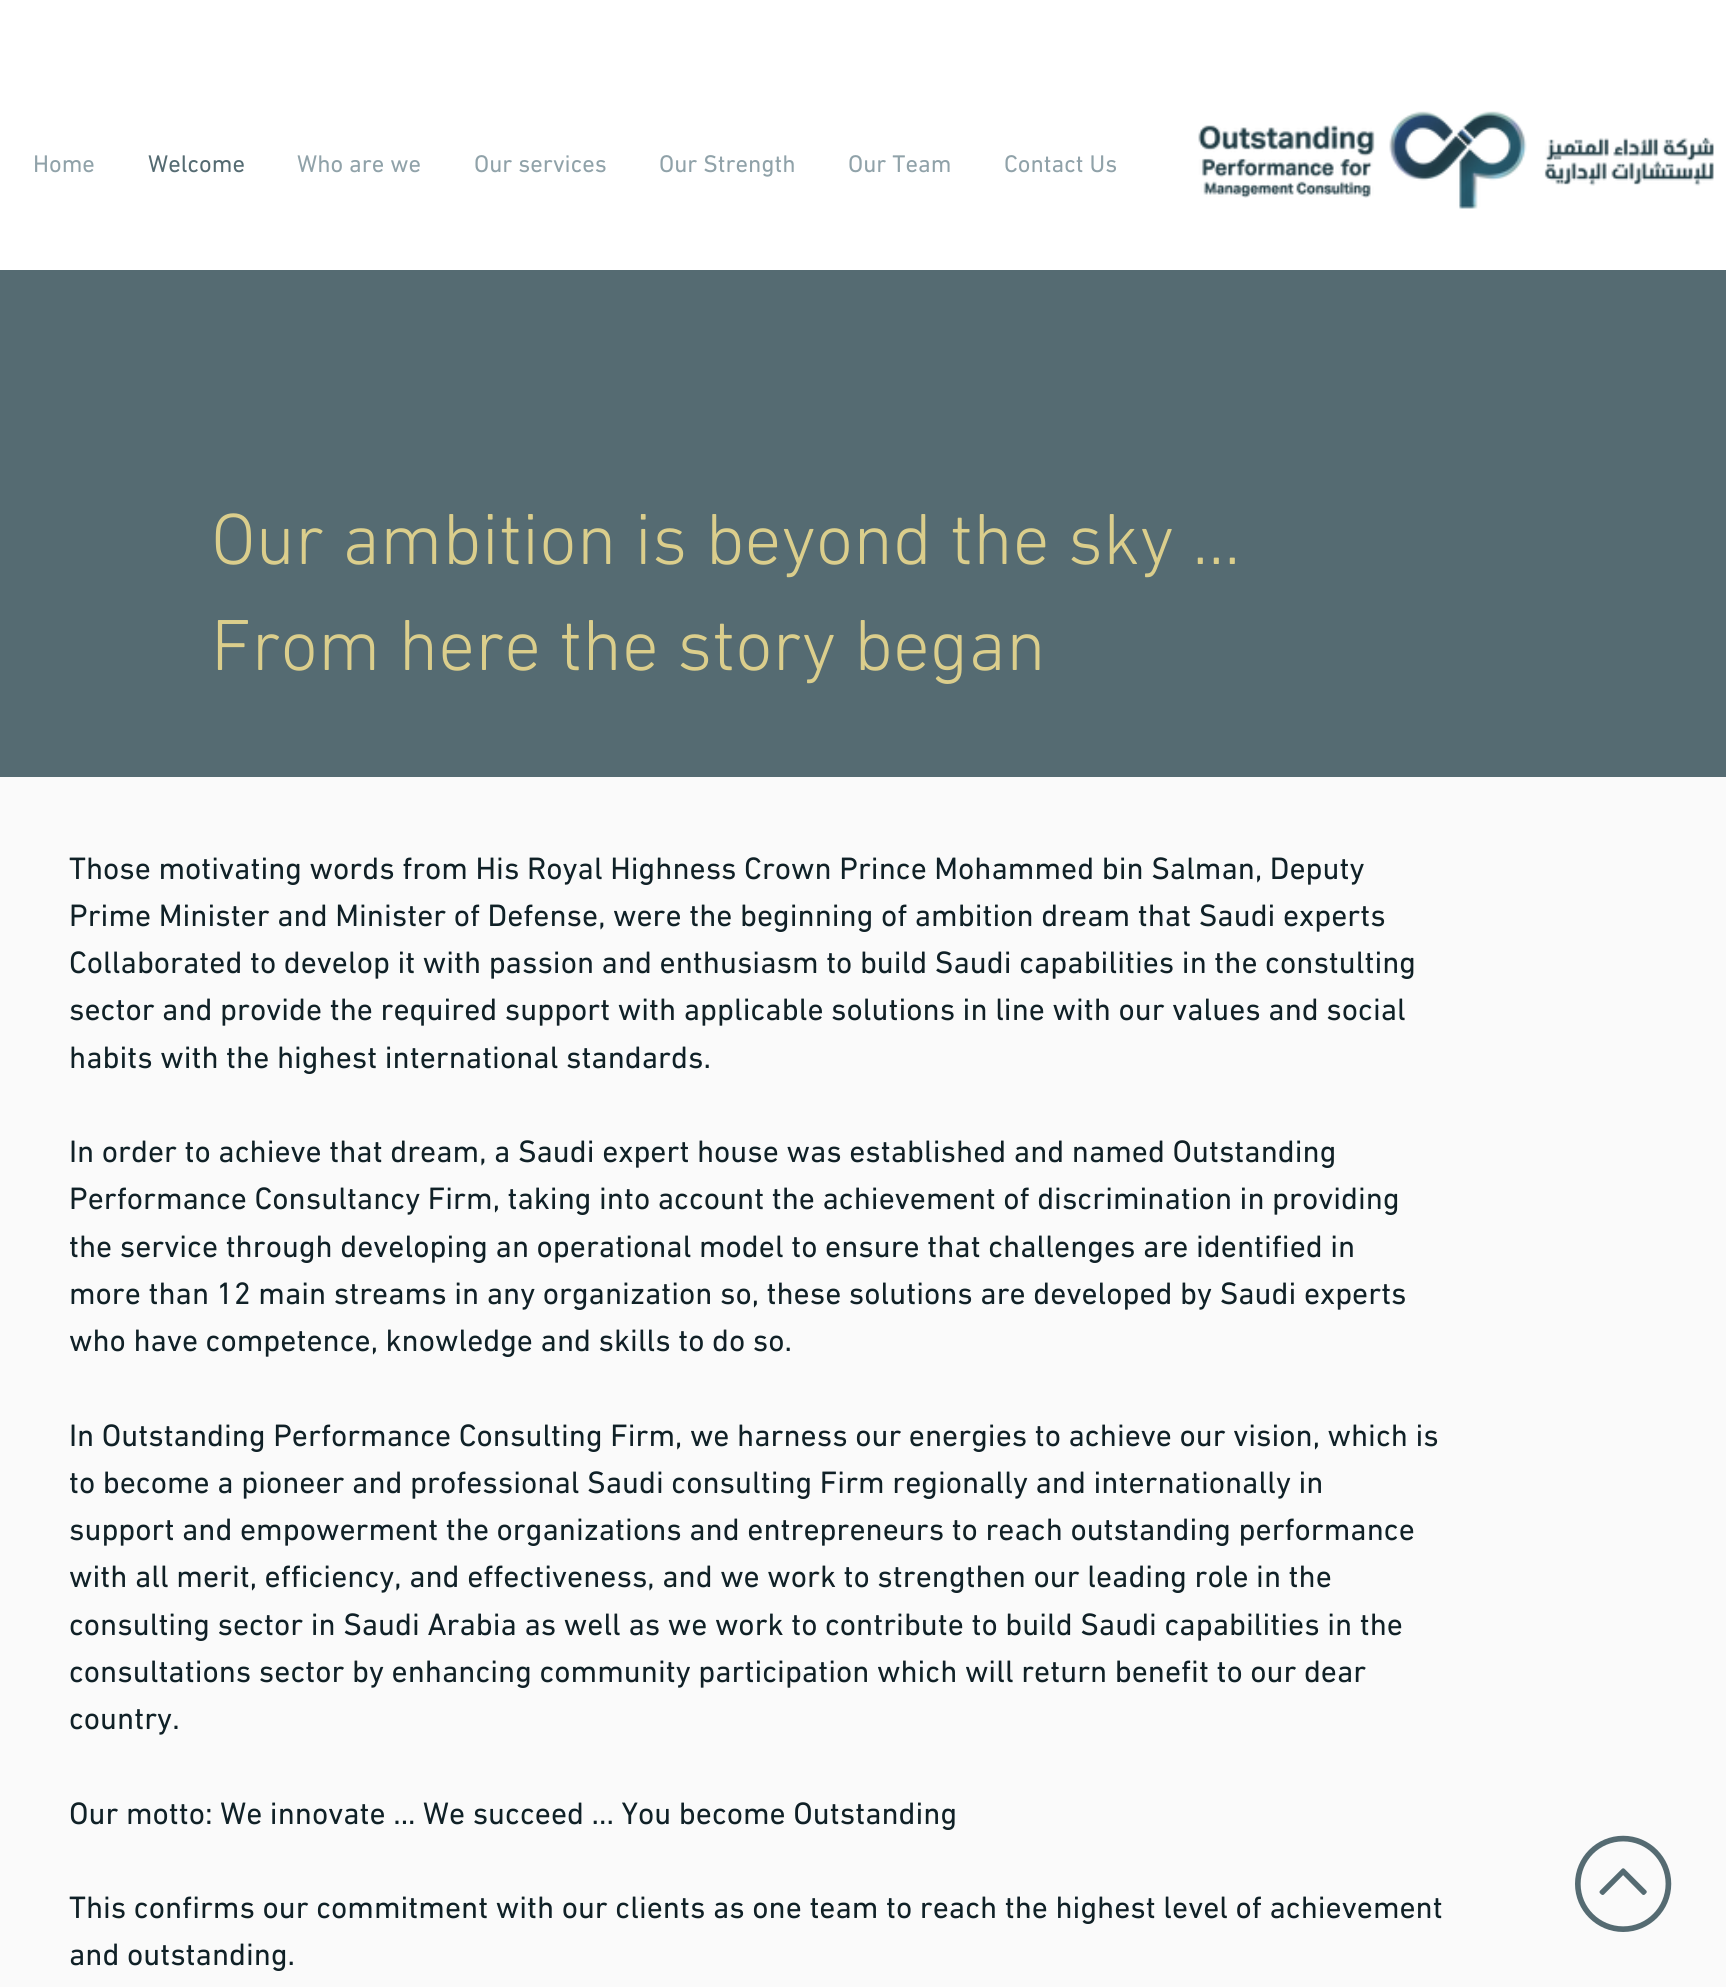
#include <cairo.h>
#include <math.h>
#include <stddef.h>

typedef struct { const char *family; double size; int italic, bold; unsigned color; } style_t;
static cairo_t *ctx;

static void ink(unsigned color) {
    cairo_set_source_rgb(ctx, (color >> 16) / 255.0, (color >> 8 & 255) / 255.0, (color & 255) / 255.0);
}

static void write(double x, double y, const char *s, const style_t *st) {
    cairo_select_font_face(ctx, st->family, st->italic ? CAIRO_FONT_SLANT_ITALIC : CAIRO_FONT_SLANT_NORMAL,
        st->bold ? CAIRO_FONT_WEIGHT_BOLD : CAIRO_FONT_WEIGHT_NORMAL);
    cairo_set_font_size(ctx, st->size);
    ink(st->color);
    cairo_move_to(ctx, x, y);
    cairo_show_text(ctx, s);
}

static void block(double x, double y, double w, double h, unsigned color) {
    ink(color);
    cairo_rectangle(ctx, x, y, w, h);
    cairo_fill(ctx);
}

static void paste(const char *path, double x, double y, double w, double h) {
    cairo_surface_t *image = cairo_image_surface_create_from_png(path);
    cairo_save(ctx);
    cairo_set_source_surface(ctx, image, x, y);
    cairo_rectangle(ctx, x, y, w, h);
    cairo_fill(ctx);
    cairo_restore(ctx);
    cairo_surface_destroy(image);
}

static const style_t s1 = {"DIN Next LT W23", 24.5, 0, 0, 0x90a2a9};
static const style_t s2 = {"DIN Next LT W23", 24.5, 0, 0, 0x556b72};
static const style_t s3 = {"DIN Next LT W23 Light", 73.5, 0, 0, 0xdbce8c};
static const style_t s4 = {"DIN Next LT W23", 31.5, 0, 0, 0x102127};

int main(void) {
    cairo_surface_t *surface = cairo_image_surface_create(CAIRO_FORMAT_RGB24, 1726, 1987);
    ctx = cairo_create(surface);
    cairo_font_options_t *options = cairo_font_options_create();
    cairo_font_options_set_hint_metrics(options, CAIRO_HINT_METRICS_OFF);
    cairo_font_options_set_hint_style(options, CAIRO_HINT_STYLE_NONE);
    cairo_set_font_options(ctx, options);
    cairo_set_miter_limit(ctx, 4);
    ink(0xfafafa);
    cairo_paint(ctx);
    block(0, 0, 1726, 270, 0xffffff);
    write(33, 172, "Home", &s1);
    write(148, 172, "Welcome", &s2);
    write(297, 172, "Who are we", &s1);
    write(474, 172, "Our services", &s1);
    write(659, 172, "Our Strength", &s1);
    write(848, 172, "Our Team", &s1);
    write(1004, 172, "Contact Us", &s1);
    paste("pic1.png", 1198, 125, 177, 73);
    paste("pic2.png", 1389, 111, 138, 98);
    paste("pic3.png", 1544, 137, 170, 49);
    block(0, 270, 1726, 507, 0x556b72);
    write(211, 564, "Our ambition is beyond the sky ...", &s3);
    write(211, 670, "From here the story began", &s3);
    write(69, 879, "Those motivating words from His Royal Highness Crown Prince Mohammed bin Salman, Deputy", &s4);
    write(69, 926, "Prime Minister and Minister of Defense, were the beginning of ambition dream that Saudi experts", &s4);
    write(69, 973, "Collaborated to develop it with passion and enthusiasm to build Saudi capabilities in the constulting", &s4);
    write(69, 1020, "sector and provide the required support with applicable solutions in line with our values and social", &s4);
    write(69, 1068, "habits with the highest international standards.", &s4);
    write(69, 1162, "In order to achieve that dream, a Saudi expert house was established and named Outstanding", &s4);
    write(69, 1209, "Performance Consultancy Firm, taking into account the achievement of discrimination in providing", &s4);
    write(69, 1257, "the service through developing an operational model to ensure that challenges are identified in", &s4);
    write(69, 1304, "more than 12 main streams in any organization so, these solutions are developed by Saudi experts", &s4);
    write(69, 1351, "who have competence, knowledge and skills to do so.", &s4);
    write(69, 1446, "In Outstanding Performance Consulting Firm, we harness our energies to achieve our vision, which is", &s4);
    write(69, 1493, "to become a pioneer and professional Saudi consulting Firm regionally and internationally in", &s4);
    write(69, 1540, "support and empowerment the organizations and entrepreneurs to reach outstanding performance", &s4);
    write(69, 1587, "with all merit, efficiency, and effectiveness, and we work to strengthen our leading role in the", &s4);
    write(69, 1635, "consulting sector in Saudi Arabia as well as we work to contribute to build Saudi capabilities in the", &s4);
    write(69, 1682, "consultations sector by enhancing community participation which will return benefit to our dear", &s4);
    write(69, 1729, "country.", &s4);
    write(69, 1824, "Our motto: We innovate ... We succeed ... You become Outstanding", &s4);
    write(69, 1918, "This confirms our commitment with our clients as one team to reach the highest level of achievement", &s4);
    write(69, 1965, "and outstanding.", &s4);
    paste("pic4.png", 1575, 1835, 97, 97);
    cairo_surface_write_to_png(surface, "screenshot.png");
    cairo_font_options_destroy(options);
    cairo_destroy(ctx);
    cairo_surface_destroy(surface);
    return 0;
}
